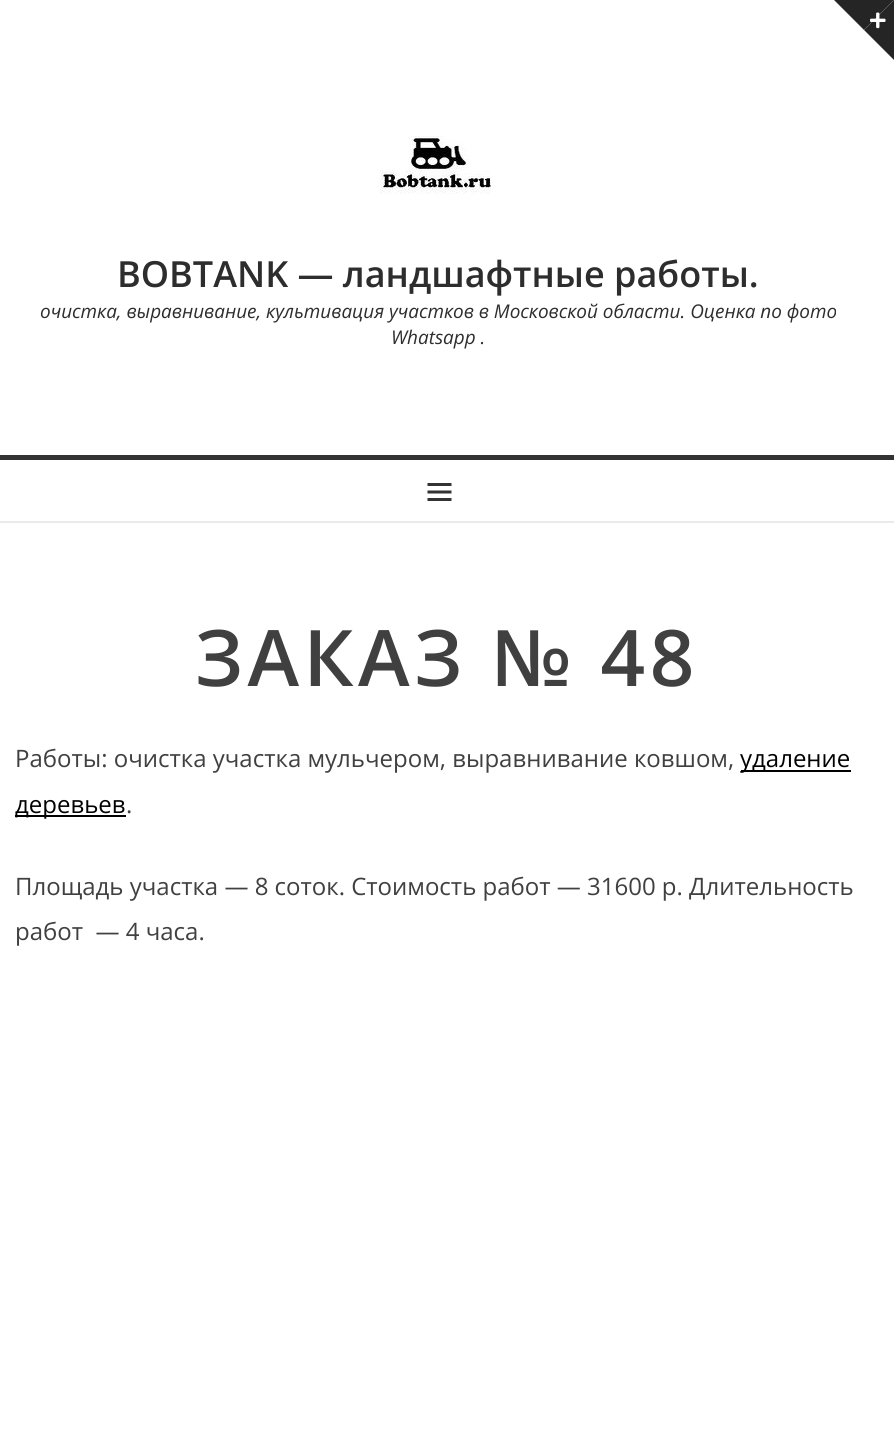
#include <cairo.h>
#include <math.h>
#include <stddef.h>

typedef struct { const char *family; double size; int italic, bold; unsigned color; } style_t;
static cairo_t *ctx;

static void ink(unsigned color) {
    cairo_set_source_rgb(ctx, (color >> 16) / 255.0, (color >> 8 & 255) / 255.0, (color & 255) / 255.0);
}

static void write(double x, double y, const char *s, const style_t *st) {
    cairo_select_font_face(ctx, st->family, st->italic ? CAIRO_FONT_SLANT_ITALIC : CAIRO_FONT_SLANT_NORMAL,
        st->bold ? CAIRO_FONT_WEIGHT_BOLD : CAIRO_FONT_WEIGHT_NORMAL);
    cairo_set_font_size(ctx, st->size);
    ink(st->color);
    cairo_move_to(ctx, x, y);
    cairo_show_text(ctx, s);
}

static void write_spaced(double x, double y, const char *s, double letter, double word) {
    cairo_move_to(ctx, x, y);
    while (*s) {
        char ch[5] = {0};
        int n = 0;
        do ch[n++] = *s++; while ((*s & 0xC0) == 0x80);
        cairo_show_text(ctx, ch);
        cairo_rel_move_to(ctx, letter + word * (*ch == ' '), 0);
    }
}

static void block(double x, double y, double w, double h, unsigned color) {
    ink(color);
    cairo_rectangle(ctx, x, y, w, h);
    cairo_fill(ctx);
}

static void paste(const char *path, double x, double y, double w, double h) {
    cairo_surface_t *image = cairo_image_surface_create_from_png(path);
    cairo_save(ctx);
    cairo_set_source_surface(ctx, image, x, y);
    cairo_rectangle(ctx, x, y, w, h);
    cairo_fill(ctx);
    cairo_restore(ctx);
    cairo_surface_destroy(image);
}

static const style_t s1 = {"Open Sans SemiBold", 36, 0, 0, 0x2d2d2d};
static const style_t s2 = {"Open Sans", 18.9, 1, 0, 0x2d2d2d};
static const style_t s3 = {"Open Sans", 24, 0, 0, 0x404040};
static const style_t s4 = {"Open Sans", 24, 0, 0, 0x000000};

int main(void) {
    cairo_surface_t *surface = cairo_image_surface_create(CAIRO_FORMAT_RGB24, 894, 1450);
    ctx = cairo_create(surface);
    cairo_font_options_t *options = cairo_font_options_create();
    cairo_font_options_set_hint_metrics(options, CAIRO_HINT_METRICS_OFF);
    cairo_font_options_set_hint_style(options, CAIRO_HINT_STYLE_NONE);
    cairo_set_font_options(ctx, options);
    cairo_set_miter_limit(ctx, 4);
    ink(0xffffff);
    cairo_paint(ctx);
    ink(0x252525);
    cairo_new_path(ctx);
    cairo_move_to(ctx, 834, 0);
    cairo_line_to(ctx, 894, 0);
    cairo_line_to(ctx, 864, 30);
    cairo_close_path(ctx);
    cairo_fill(ctx);
    cairo_new_path(ctx);
    cairo_move_to(ctx, 894, 0);
    cairo_line_to(ctx, 894, 60);
    cairo_line_to(ctx, 864, 30);
    cairo_close_path(ctx);
    cairo_fill(ctx);
    paste("pic1.png", 870, 12, 16, 17);
    paste("pic2.png", 379, 136, 112, 58);
    write(117, 287, "BOBTANK — ландшафтные работы.", &s1);
    write(40, 318, "очистка, выравнивание, культивация участков в Московской области. Оценка по фото", &s2);
    write(391, 344, "Whatsapp .", &s2);
    block(0, 455, 894, 5, 0x333333);
    block(0, 521, 894, 2, 0xeaeaea);
    paste("pic3.png", 427, 483, 25, 18);
    cairo_select_font_face(ctx, "Open Sans SemiBold", CAIRO_FONT_SLANT_NORMAL, CAIRO_FONT_WEIGHT_NORMAL);
    cairo_set_font_size(ctx, 78);
    ink(0x404040);
    write_spaced(195, 686, "ЗАКАЗ № 48", 4.5, 0);
    write(15, 767, "Работы: очистка участка мульчером, выравнивание ковшом,", &s3);
    block(741, 770, 110, 2, 0x000000);
    write(740, 767, "удаление", &s4);
    block(15, 815, 111, 2, 0x000000);
    write(15, 813, "деревьев", &s4);
    write(126, 813, ".", &s3);
    write(15, 895, "Площадь участка — 8 соток. Стоимость работ — 31600 р. Длительность", &s3);
    write(15, 940, "работ  — 4 часа.", &s3);
    cairo_surface_write_to_png(surface, "screenshot.png");
    cairo_font_options_destroy(options);
    cairo_destroy(ctx);
    cairo_surface_destroy(surface);
    return 0;
}
